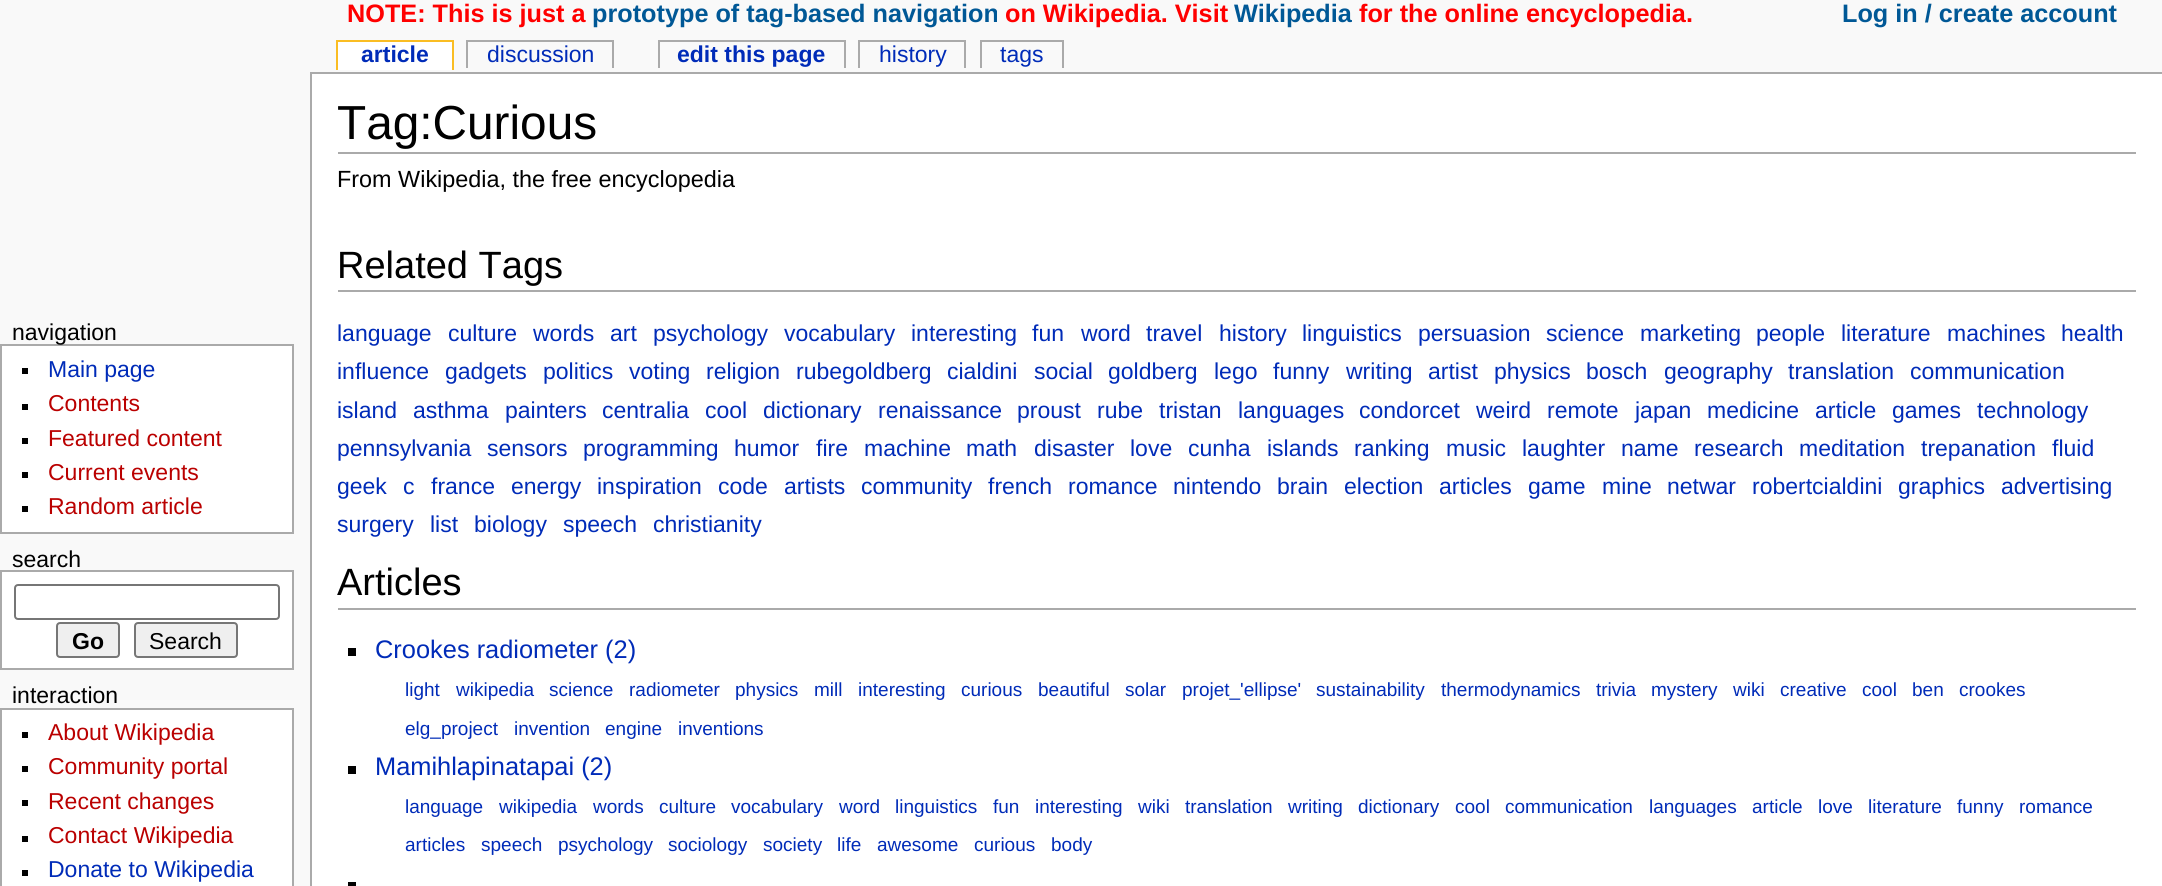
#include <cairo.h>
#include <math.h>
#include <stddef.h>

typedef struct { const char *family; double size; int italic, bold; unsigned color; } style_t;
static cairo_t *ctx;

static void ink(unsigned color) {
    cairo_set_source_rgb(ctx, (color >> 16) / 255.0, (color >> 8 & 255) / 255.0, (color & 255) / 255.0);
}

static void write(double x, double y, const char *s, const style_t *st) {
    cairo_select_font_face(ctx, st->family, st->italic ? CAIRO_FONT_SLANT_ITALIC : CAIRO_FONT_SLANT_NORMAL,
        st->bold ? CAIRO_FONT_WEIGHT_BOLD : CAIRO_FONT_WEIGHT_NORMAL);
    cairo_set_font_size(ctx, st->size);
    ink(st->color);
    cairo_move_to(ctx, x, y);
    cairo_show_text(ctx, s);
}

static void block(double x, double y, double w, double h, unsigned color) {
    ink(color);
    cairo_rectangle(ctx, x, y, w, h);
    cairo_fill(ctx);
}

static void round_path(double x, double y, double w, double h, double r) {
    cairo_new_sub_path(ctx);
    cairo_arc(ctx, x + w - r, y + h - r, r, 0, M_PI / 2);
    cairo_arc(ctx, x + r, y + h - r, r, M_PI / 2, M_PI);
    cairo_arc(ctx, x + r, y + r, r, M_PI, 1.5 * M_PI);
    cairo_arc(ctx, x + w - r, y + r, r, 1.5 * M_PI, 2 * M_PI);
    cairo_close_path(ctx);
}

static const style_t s1 = {"Liberation Sans", 25.25, 0, 1, 0xff0000};
static const style_t s2 = {"Liberation Sans", 25.25, 0, 1, 0x005896};
static const style_t s3 = {"Liberation Sans", 23, 0, 1, 0x002bb8};
static const style_t s4 = {"Liberation Sans", 23, 0, 0, 0x002bb8};
static const style_t s5 = {"Liberation Sans", 23, 0, 0, 0x000000};
static const style_t s6 = {"Liberation Sans", 23, 0, 0, 0xba0000};
static const style_t s7 = {"Liberation Sans", 23, 0, 1, 0x000000};
static const style_t s8 = {"Liberation Sans", 47.75, 0, 0, 0x000000};
static const style_t s9 = {"Liberation Sans", 23.4, 0, 0, 0x000000};
static const style_t s10 = {"Liberation Sans", 38, 0, 0, 0x000000};
static const style_t s11 = {"Liberation Sans", 25.4, 0, 0, 0x002bb8};
static const style_t s12 = {"Liberation Sans", 19, 0, 0, 0x002bb8};

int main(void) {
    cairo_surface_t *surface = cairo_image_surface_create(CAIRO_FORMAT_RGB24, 2162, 886);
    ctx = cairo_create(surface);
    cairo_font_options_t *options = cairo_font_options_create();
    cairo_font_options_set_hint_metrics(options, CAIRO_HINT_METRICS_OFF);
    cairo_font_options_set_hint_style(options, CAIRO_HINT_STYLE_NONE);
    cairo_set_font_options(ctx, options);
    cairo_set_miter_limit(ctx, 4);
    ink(0xf9f9f9);
    cairo_paint(ctx);
    write(347, 22, "NOTE: This is just a", &s1);
    write(592, 22, "prototype of tag-based navigation", &s2);
    write(1005, 22, "on Wikipedia. Visit", &s1);
    write(1234, 22, "Wikipedia", &s2);
    write(1359, 22, "for the online encyclopedia.", &s1);
    write(1842, 22, "Log in / create account", &s2);
    block(338, 42, 114, 28, 0xffffff);
    write(361, 62, "article", &s3);
    block(336, 40, 118, 2, 0xfabd23);
    block(452, 40, 2, 30, 0xfabd23);
    block(336, 40, 2, 30, 0xfabd23);
    write(487, 62, "discussion", &s4);
    block(466, 40, 148, 2, 0xaaaaaa);
    block(612, 40, 2, 28, 0xaaaaaa);
    block(466, 40, 2, 28, 0xaaaaaa);
    write(677, 62, "edit this page", &s3);
    block(658, 40, 188, 2, 0xaaaaaa);
    block(844, 40, 2, 28, 0xaaaaaa);
    block(658, 40, 2, 28, 0xaaaaaa);
    write(879, 62, "history", &s4);
    block(858, 40, 108, 2, 0xaaaaaa);
    block(964, 40, 2, 28, 0xaaaaaa);
    block(858, 40, 2, 28, 0xaaaaaa);
    write(1000, 62, "tags", &s4);
    block(980, 40, 84, 2, 0xaaaaaa);
    block(1062, 40, 2, 28, 0xaaaaaa);
    block(980, 40, 2, 28, 0xaaaaaa);
    ink(0xffffff);
    cairo_rectangle(ctx, 1, 345, 292, 188);
    cairo_fill_preserve(ctx);
    ink(0xaaaaaa);
    cairo_stroke(ctx);
    write(12, 340, "navigation", &s5);
    block(22, 368, 6, 6, 0x000000);
    write(48, 377, "Main page", &s4);
    block(22, 404, 6, 6, 0x000000);
    write(48, 411, "Contents", &s6);
    block(22, 438, 6, 6, 0x000000);
    write(48, 446, "Featured content", &s6);
    block(22, 472, 6, 6, 0x000000);
    write(48, 480, "Current events", &s6);
    block(22, 506, 6, 6, 0x000000);
    write(48, 514, "Random article", &s6);
    write(12, 567, "search", &s5);
    ink(0xffffff);
    cairo_rectangle(ctx, 1, 571, 292, 98);
    cairo_fill_preserve(ctx);
    ink(0xaaaaaa);
    cairo_stroke(ctx);
    round_path(15, 585, 264, 34, 3);
    ink(0x767676);
    cairo_stroke(ctx);
    ink(0xefefef);
    round_path(57, 623, 62, 34, 3);
    cairo_fill_preserve(ctx);
    ink(0x767676);
    cairo_stroke(ctx);
    write(72, 649, "Go", &s7);
    ink(0xefefef);
    round_path(135, 623, 102, 34, 3);
    cairo_fill_preserve(ctx);
    ink(0x767676);
    cairo_stroke(ctx);
    write(149, 649, "Search", &s5);
    write(12, 703, "interaction", &s5);
    ink(0xffffff);
    cairo_rectangle(ctx, 1, 709, 292, 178);
    cairo_fill_preserve(ctx);
    ink(0xaaaaaa);
    cairo_stroke(ctx);
    block(22, 732, 6, 6, 0x000000);
    write(48, 740, "About Wikipedia", &s6);
    block(22, 766, 6, 6, 0x000000);
    write(48, 774, "Community portal", &s6);
    block(22, 800, 6, 6, 0x000000);
    write(48, 809, "Recent changes", &s6);
    block(22, 836, 6, 6, 0x000000);
    write(48, 843, "Contact Wikipedia", &s6);
    block(22, 870, 6, 6, 0x000000);
    write(48, 877, "Donate to Wikipedia", &s4);
    block(312, 74, 1850, 812, 0xffffff);
    block(310, 72, 1852, 2, 0xaaaaaa);
    block(310, 72, 2, 814, 0xaaaaaa);
    block(338, 152, 1798, 2, 0xaaaaaa);
    write(337, 139, "Tag:Curious", &s8);
    write(337, 187, "From Wikipedia, the free encyclopedia", &s9);
    block(338, 290, 1798, 2, 0xaaaaaa);
    write(337, 278, "Related Tags", &s10);
    write(337, 341, "language", &s4);
    write(448, 341, "culture", &s4);
    write(533, 341, "words", &s4);
    write(610, 341, "art", &s4);
    write(653, 341, "psychology", &s4);
    write(784, 341, "vocabulary", &s4);
    write(911, 341, "interesting", &s4);
    write(1032, 341, "fun", &s4);
    write(1081, 341, "word", &s4);
    write(1146, 341, "travel", &s4);
    write(1219, 341, "history", &s4);
    write(1302, 341, "linguistics", &s4);
    write(1418, 341, "persuasion", &s4);
    write(1546, 341, "science", &s4);
    write(1640, 341, "marketing", &s4);
    write(1756, 341, "people", &s4);
    write(1841, 341, "literature", &s4);
    write(1947, 341, "machines", &s4);
    write(2061, 341, "health", &s4);
    write(337, 379, "influence", &s4);
    write(445, 379, "gadgets", &s4);
    write(543, 379, "politics", &s4);
    write(629, 379, "voting", &s4);
    write(706, 379, "religion", &s4);
    write(796, 379, "rubegoldberg", &s4);
    write(947, 379, "cialdini", &s4);
    write(1034, 379, "social", &s4);
    write(1108, 379, "goldberg", &s4);
    write(1214, 379, "lego", &s4);
    write(1273, 379, "funny", &s4);
    write(1346, 379, "writing", &s4);
    write(1428, 379, "artist", &s4);
    write(1494, 379, "physics", &s4);
    write(1586, 379, "bosch", &s4);
    write(1664, 379, "geography", &s4);
    write(1788, 379, "translation", &s4);
    write(1910, 379, "communication", &s4);
    write(337, 418, "island", &s4);
    write(413, 418, "asthma", &s4);
    write(505, 418, "painters", &s4);
    write(602, 418, "centralia", &s4);
    write(705, 418, "cool", &s4);
    write(763, 418, "dictionary", &s4);
    write(878, 418, "renaissance", &s4);
    write(1017, 418, "proust", &s4);
    write(1097, 418, "rube", &s4);
    write(1159, 418, "tristan", &s4);
    write(1238, 418, "languages", &s4);
    write(1359, 418, "condorcet", &s4);
    write(1476, 418, "weird", &s4);
    write(1547, 418, "remote", &s4);
    write(1635, 418, "japan", &s4);
    write(1707, 418, "medicine", &s4);
    write(1815, 418, "article", &s4);
    write(1892, 418, "games", &s4);
    write(1977, 418, "technology", &s4);
    write(337, 456, "pennsylvania", &s4);
    write(487, 456, "sensors", &s4);
    write(583, 456, "programming", &s4);
    write(734, 456, "humor", &s4);
    write(816, 456, "fire", &s4);
    write(864, 456, "machine", &s4);
    write(966, 456, "math", &s4);
    write(1034, 456, "disaster", &s4);
    write(1130, 456, "love", &s4);
    write(1188, 456, "cunha", &s4);
    write(1267, 456, "islands", &s4);
    write(1354, 456, "ranking", &s4);
    write(1446, 456, "music", &s4);
    write(1522, 456, "laughter", &s4);
    write(1621, 456, "name", &s4);
    write(1694, 456, "research", &s4);
    write(1799, 456, "meditation", &s4);
    write(1921, 456, "trepanation", &s4);
    write(2052, 456, "fluid", &s4);
    write(337, 494, "geek", &s4);
    write(403, 494, "c", &s4);
    write(431, 494, "france", &s4);
    write(511, 494, "energy", &s4);
    write(597, 494, "inspiration", &s4);
    write(718, 494, "code", &s4);
    write(784, 494, "artists", &s4);
    write(861, 494, "community", &s4);
    write(988, 494, "french", &s4);
    write(1068, 494, "romance", &s4);
    write(1173, 494, "nintendo", &s4);
    write(1277, 494, "brain", &s4);
    write(1344, 494, "election", &s4);
    write(1439, 494, "articles", &s4);
    write(1528, 494, "game", &s4);
    write(1602, 494, "mine", &s4);
    write(1667, 494, "netwar", &s4);
    write(1752, 494, "robertcialdini", &s4);
    write(1898, 494, "graphics", &s4);
    write(2001, 494, "advertising", &s4);
    write(337, 532, "surgery", &s4);
    write(430, 532, "list", &s4);
    write(474, 532, "biology", &s4);
    write(563, 532, "speech", &s4);
    write(653, 532, "christianity", &s4);
    block(338, 608, 1798, 2, 0xaaaaaa);
    write(337, 595, "Articles", &s10);
    block(348, 648, 8, 8, 0x000000);
    write(375, 658, "Crookes radiometer (2)", &s11);
    write(405, 696, "light", &s12);
    write(456, 696, "wikipedia", &s12);
    write(549, 696, "science", &s12);
    write(629, 696, "radiometer", &s12);
    write(735, 696, "physics", &s12);
    write(814, 696, "mill", &s12);
    write(858, 696, "interesting", &s12);
    write(961, 696, "curious", &s12);
    write(1038, 696, "beautiful", &s12);
    write(1125, 696, "solar", &s12);
    write(1182, 696, "projet_'ellipse'", &s12);
    write(1316, 696, "sustainability", &s12);
    write(1441, 696, "thermodynamics", &s12);
    write(1596, 696, "trivia", &s12);
    write(1651, 696, "mystery", &s12);
    write(1733, 696, "wiki", &s12);
    write(1780, 696, "creative", &s12);
    write(1862, 696, "cool", &s12);
    write(1912, 696, "ben", &s12);
    write(1959, 696, "crookes", &s12);
    write(405, 735, "elg_project", &s12);
    write(514, 735, "invention", &s12);
    write(605, 735, "engine", &s12);
    write(678, 735, "inventions", &s12);
    block(348, 766, 8, 8, 0x000000);
    write(375, 775, "Mamihlapinatapai (2)", &s11);
    write(405, 813, "language", &s12);
    write(499, 813, "wikipedia", &s12);
    write(593, 813, "words", &s12);
    write(659, 813, "culture", &s12);
    write(731, 813, "vocabulary", &s12);
    write(839, 813, "word", &s12);
    write(895, 813, "linguistics", &s12);
    write(993, 813, "fun", &s12);
    write(1035, 813, "interesting", &s12);
    write(1138, 813, "wiki", &s12);
    write(1185, 813, "translation", &s12);
    write(1288, 813, "writing", &s12);
    write(1358, 813, "dictionary", &s12);
    write(1455, 813, "cool", &s12);
    write(1505, 813, "communication", &s12);
    write(1649, 813, "languages", &s12);
    write(1752, 813, "article", &s12);
    write(1818, 813, "love", &s12);
    write(1868, 813, "literature", &s12);
    write(1957, 813, "funny", &s12);
    write(2019, 813, "romance", &s12);
    write(405, 851, "articles", &s12);
    write(481, 851, "speech", &s12);
    write(558, 851, "psychology", &s12);
    write(668, 851, "sociology", &s12);
    write(763, 851, "society", &s12);
    write(837, 851, "life", &s12);
    write(877, 851, "awesome", &s12);
    write(974, 851, "curious", &s12);
    write(1051, 851, "body", &s12);
    block(348, 882, 8, 4, 0x000000);
    cairo_surface_write_to_png(surface, "screenshot.png");
    cairo_font_options_destroy(options);
    cairo_destroy(ctx);
    cairo_surface_destroy(surface);
    return 0;
}
